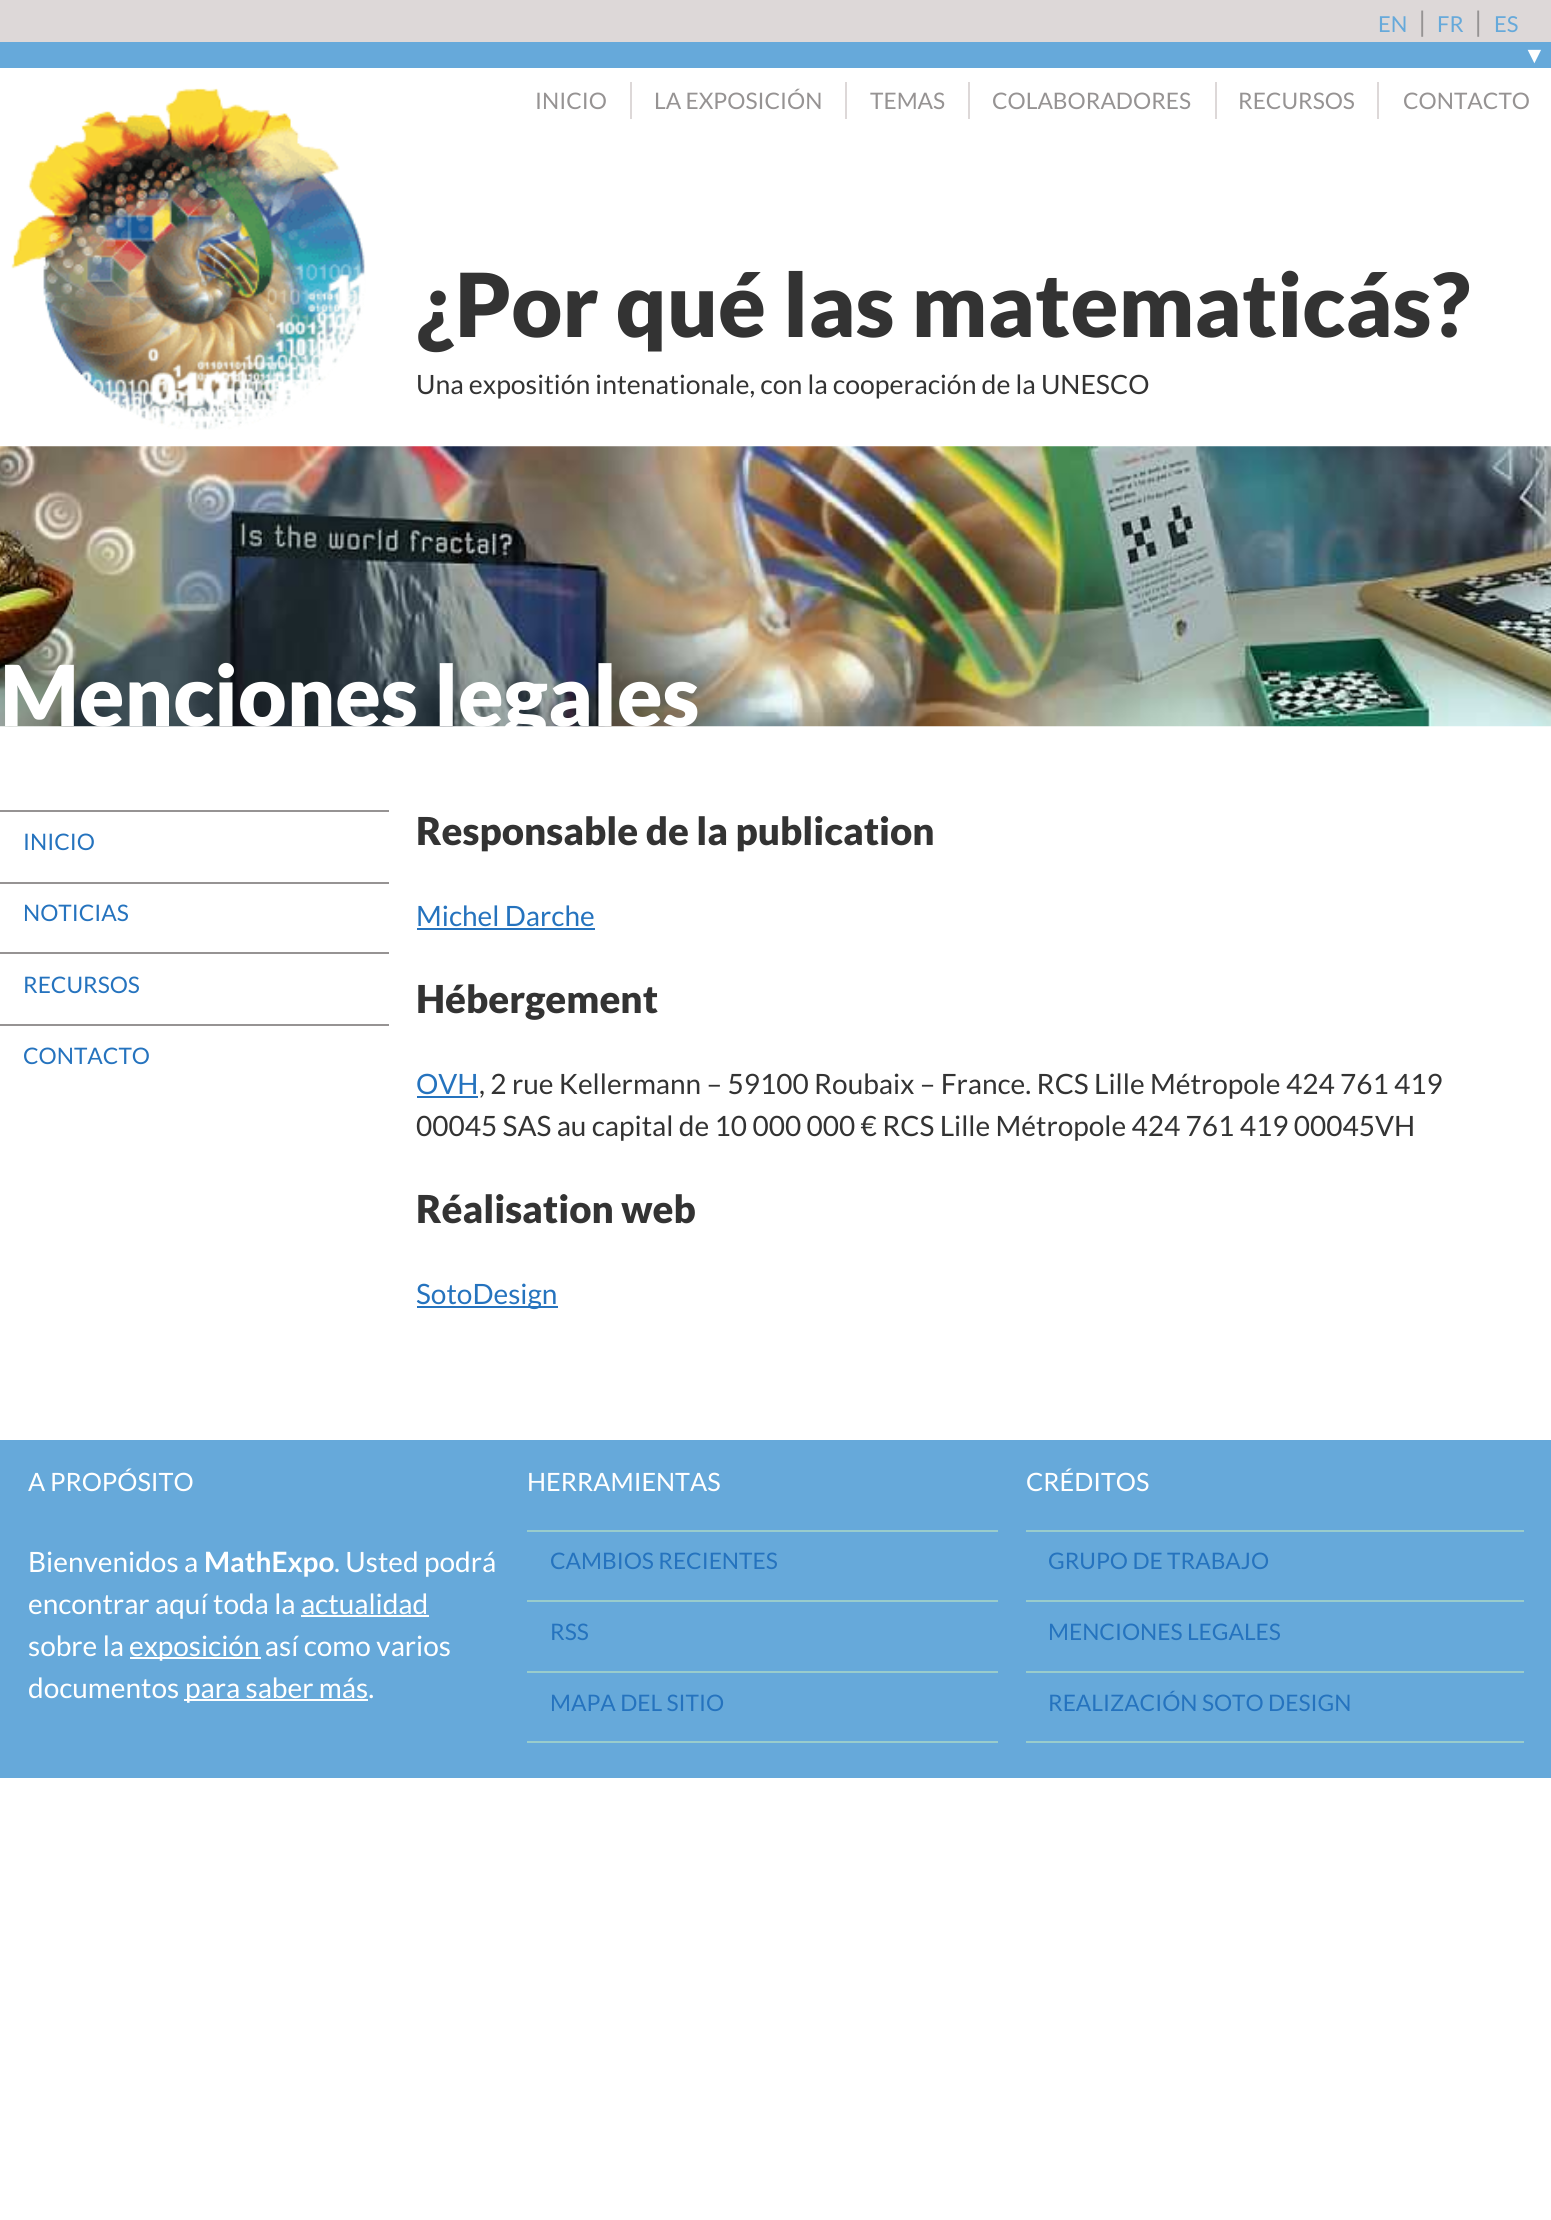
#include <cairo.h>
#include <math.h>
#include <stddef.h>

typedef struct { const char *family; double size; int italic, bold; unsigned color; } style_t;
static cairo_t *ctx;

static void ink(unsigned color) {
    cairo_set_source_rgb(ctx, (color >> 16) / 255.0, (color >> 8 & 255) / 255.0, (color & 255) / 255.0);
}

static void write(double x, double y, const char *s, const style_t *st) {
    cairo_select_font_face(ctx, st->family, st->italic ? CAIRO_FONT_SLANT_ITALIC : CAIRO_FONT_SLANT_NORMAL,
        st->bold ? CAIRO_FONT_WEIGHT_BOLD : CAIRO_FONT_WEIGHT_NORMAL);
    cairo_set_font_size(ctx, st->size);
    ink(st->color);
    cairo_move_to(ctx, x, y);
    cairo_show_text(ctx, s);
}

static void block(double x, double y, double w, double h, unsigned color) {
    ink(color);
    cairo_rectangle(ctx, x, y, w, h);
    cairo_fill(ctx);
}

static void paste(const char *path, double x, double y, double w, double h) {
    cairo_surface_t *image = cairo_image_surface_create_from_png(path);
    cairo_save(ctx);
    cairo_set_source_surface(ctx, image, x, y);
    cairo_rectangle(ctx, x, y, w, h);
    cairo_fill(ctx);
    cairo_restore(ctx);
    cairo_surface_destroy(image);
}

static const style_t s1 = {"Lato", 22, 0, 0, 0x66a9da};
static const style_t s2 = {"Lato", 28, 0, 0, 0x969393};
static const style_t s3 = {"Liberation Sans", 23, 0, 0, 0xffffff};
static const style_t s4 = {"Lato", 22.75, 0, 0, 0x969393};
static const style_t s5 = {"Lato Black", 88.25, 0, 0, 0x333333};
static const style_t s6 = {"Lato", 26.6, 0, 0, 0x333333};
static const style_t s7 = {"Lato Black", 84, 0, 0, 0xffffff};
static const style_t s8 = {"Lato", 22.75, 0, 0, 0x2573be};
static const style_t s9 = {"Lato Black", 38.5, 0, 0, 0x333333};
static const style_t s10 = {"Lato", 28, 0, 0, 0x2573be};
static const style_t s11 = {"Lato", 28, 0, 0, 0x333333};
static const style_t s12 = {"Lato", 25.25, 0, 0, 0xffffff};
static const style_t s13 = {"Lato", 28, 0, 0, 0xffffff};
static const style_t s14 = {"Lato", 28, 0, 1, 0xffffff};

int main(void) {
    cairo_surface_t *surface = cairo_image_surface_create(CAIRO_FORMAT_RGB24, 1551, 2220);
    ctx = cairo_create(surface);
    cairo_font_options_t *options = cairo_font_options_create();
    cairo_font_options_set_hint_metrics(options, CAIRO_HINT_METRICS_OFF);
    cairo_font_options_set_hint_style(options, CAIRO_HINT_STYLE_NONE);
    cairo_set_font_options(ctx, options);
    cairo_set_miter_limit(ctx, 4);
    ink(0xffffff);
    cairo_paint(ctx);
    block(0, 0, 1551, 42, 0xddd8d8);
    write(1378, 32, "EN", &s1);
    write(1418, 32, "|", &s2);
    write(1437, 32, "FR", &s1);
    write(1474, 32, "|", &s2);
    write(1494, 32, "ES", &s1);
    block(0, 42, 1551, 26, 0x66a9da);
    write(1523, 63, "▼", &s3);
    write(535, 109, "INICIO", &s4);
    block(630, 82, 2, 37, 0xddd8d8);
    write(654, 109, "LA EXPOSICIÓN", &s4);
    block(845, 82, 2, 37, 0xddd8d8);
    write(870, 109, "TEMAS", &s4);
    block(968, 82, 2, 37, 0xddd8d8);
    write(992, 109, "COLABORADORES", &s4);
    block(1215, 82, 2, 37, 0xddd8d8);
    write(1238, 109, "RECURSOS", &s4);
    block(1377, 82, 2, 37, 0xddd8d8);
    write(1403, 109, "CONTACTO", &s4);
    paste("pic1.png", 11, 88, 355, 342);
    write(416, 337, "¿Por qué las matematicás?", &s5);
    write(416, 394, "Una expositión intenationale, con la cooperación de la UNESCO", &s6);
    paste("pic2.png", 0, 446, 1551, 281);
    write(0, 726, "Menciones legales", &s7);
    block(0, 810, 389, 2, 0x969393);
    write(23, 850, "INICIO", &s8);
    block(0, 882, 389, 2, 0x969393);
    write(23, 921, "NOTICIAS", &s8);
    block(0, 952, 389, 2, 0x969393);
    write(23, 993, "RECURSOS", &s8);
    block(0, 1024, 389, 2, 0x969393);
    write(23, 1064, "CONTACTO", &s8);
    write(416, 845, "Responsable de la publication", &s9);
    write(416, 926, "Michel Darche", &s10);
    block(417, 928, 178, 2, 0x2573be);
    write(416, 1013, "Hébergement", &s9);
    write(416, 1094, "OVH", &s10);
    block(417, 1096, 61, 2, 0x2573be);
    write(479, 1094, ", 2 rue Kellermann – 59100 Roubaix – France. RCS Lille Métropole 424 761 419", &s11);
    write(416, 1136, "00045 SAS au capital de 10 000 000 € RCS Lille Métropole 424 761 419 00045VH", &s11);
    write(416, 1223, "Réalisation web", &s9);
    block(417, 1306, 141, 2, 0x2573be);
    write(416, 1304, "SotoDesign", &s10);
    block(0, 1440, 1551, 338, 0x66a9da);
    write(28, 1491, "A PROPÓSITO", &s12);
    write(28, 1572, "Bienvenidos a", &s13);
    write(204, 1572, "MathExpo", &s14);
    write(334, 1572, ". Usted podrá", &s13);
    write(28, 1614, "encontrar aquí toda la actualidad", &s13);
    block(301, 1615, 128, 2, 0xffffff);
    write(28, 1656, "sobre la", &s13);
    block(130, 1657, 131, 2, 0xffffff);
    write(129, 1656, "exposición así como varios", &s13);
    write(28, 1698, "documentos", &s13);
    block(184, 1699, 184, 2, 0xffffff);
    write(185, 1698, "para saber más.", &s13);
    write(527, 1491, "HERRAMIENTAS", &s12);
    block(527, 1530, 471, 2, 0x99cccc);
    write(550, 1569, "CAMBIOS RECIENTES", &s8);
    block(527, 1600, 471, 2, 0x99cccc);
    write(550, 1640, "RSS", &s8);
    block(527, 1671, 471, 2, 0x99cccc);
    block(527, 1741, 471, 2, 0x99cccc);
    write(550, 1711, "MAPA DEL SITIO", &s8);
    write(1026, 1491, "CRÉDITOS", &s12);
    block(1026, 1530, 498, 2, 0x99cccc);
    write(1048, 1569, "GRUPO DE TRABAJO", &s8);
    block(1026, 1600, 498, 2, 0x99cccc);
    write(1048, 1640, "MENCIONES LEGALES", &s8);
    block(1026, 1671, 498, 2, 0x99cccc);
    block(1026, 1741, 498, 2, 0x99cccc);
    write(1048, 1711, "REALIZACIÓN SOTO DESIGN", &s8);
    cairo_surface_write_to_png(surface, "screenshot.png");
    cairo_font_options_destroy(options);
    cairo_destroy(ctx);
    cairo_surface_destroy(surface);
    return 0;
}
